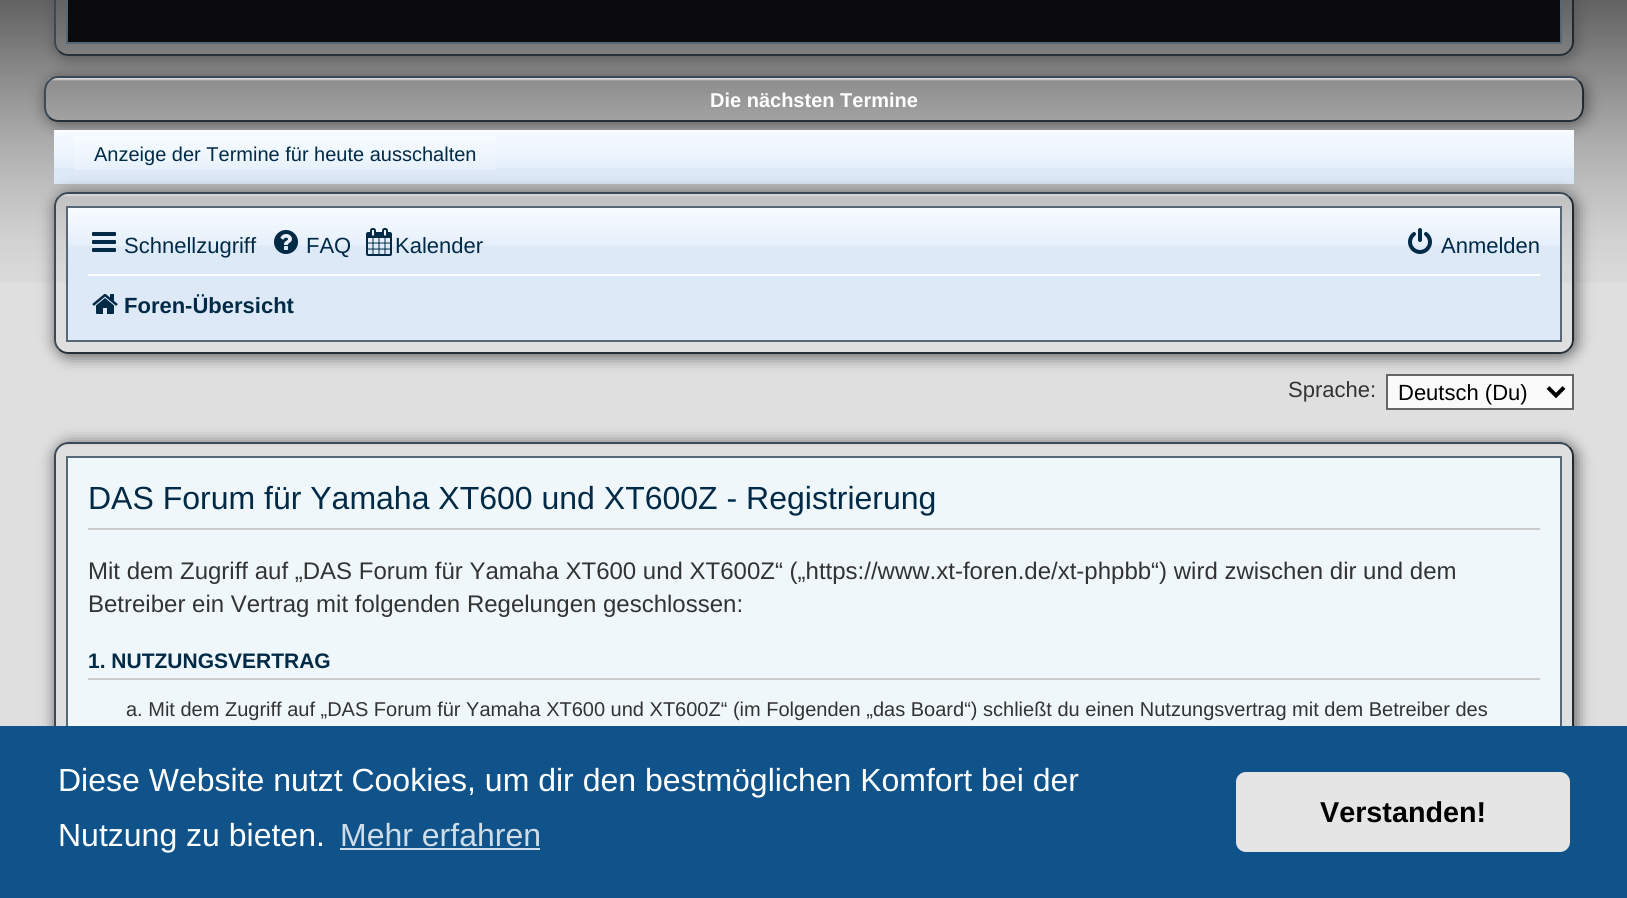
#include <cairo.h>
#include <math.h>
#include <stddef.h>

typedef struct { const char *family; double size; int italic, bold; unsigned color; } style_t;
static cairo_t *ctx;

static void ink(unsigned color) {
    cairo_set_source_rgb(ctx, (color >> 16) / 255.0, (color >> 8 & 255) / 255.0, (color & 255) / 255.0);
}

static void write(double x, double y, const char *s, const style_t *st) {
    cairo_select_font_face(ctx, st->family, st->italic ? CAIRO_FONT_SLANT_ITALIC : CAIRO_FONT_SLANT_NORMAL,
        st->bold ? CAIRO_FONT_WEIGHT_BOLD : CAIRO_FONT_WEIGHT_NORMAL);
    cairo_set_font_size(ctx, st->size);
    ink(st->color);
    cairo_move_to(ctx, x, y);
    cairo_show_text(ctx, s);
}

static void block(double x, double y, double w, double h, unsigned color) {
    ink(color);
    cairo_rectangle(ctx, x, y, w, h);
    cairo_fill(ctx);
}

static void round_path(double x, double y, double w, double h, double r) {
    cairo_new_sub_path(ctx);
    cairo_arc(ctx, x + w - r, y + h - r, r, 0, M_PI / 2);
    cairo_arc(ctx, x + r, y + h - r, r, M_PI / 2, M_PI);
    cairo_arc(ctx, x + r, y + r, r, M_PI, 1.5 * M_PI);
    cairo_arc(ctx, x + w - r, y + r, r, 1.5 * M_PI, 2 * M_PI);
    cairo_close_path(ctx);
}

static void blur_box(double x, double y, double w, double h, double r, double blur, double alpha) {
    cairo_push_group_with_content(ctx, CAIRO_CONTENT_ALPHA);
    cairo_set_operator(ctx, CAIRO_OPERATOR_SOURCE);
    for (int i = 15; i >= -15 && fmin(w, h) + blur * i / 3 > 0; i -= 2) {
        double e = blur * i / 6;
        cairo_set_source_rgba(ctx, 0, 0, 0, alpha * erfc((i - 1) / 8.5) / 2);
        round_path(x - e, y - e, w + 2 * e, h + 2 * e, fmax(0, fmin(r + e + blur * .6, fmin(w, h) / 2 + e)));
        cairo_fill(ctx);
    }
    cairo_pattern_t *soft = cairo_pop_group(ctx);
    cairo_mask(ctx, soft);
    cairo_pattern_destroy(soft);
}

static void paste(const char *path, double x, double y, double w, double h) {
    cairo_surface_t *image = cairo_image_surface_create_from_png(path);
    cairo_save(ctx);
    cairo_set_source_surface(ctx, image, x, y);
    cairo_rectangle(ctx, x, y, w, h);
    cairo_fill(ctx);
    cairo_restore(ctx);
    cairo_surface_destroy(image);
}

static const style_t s1 = {"Liberation Sans", 20, 0, 1, 0xffffff};
static const style_t s2 = {"Liberation Sans", 20, 0, 0, 0x002a46};
static const style_t s3 = {"Liberation Sans", 22, 0, 0, 0x002a46};
static const style_t s4 = {"Liberation Sans", 22, 0, 1, 0x002a46};
static const style_t s5 = {"Liberation Sans", 22, 0, 0, 0x333333};
static const style_t s6 = {"Liberation Sans", 22, 0, 0, 0x000000};
static const style_t s7 = {"Liberation Sans", 32, 0, 0, 0x002a46};
static const style_t s8 = {"Liberation Sans", 24, 0, 0, 0x333333};
static const style_t s9 = {"Liberation Sans", 21, 0, 1, 0x002a46};
static const style_t s10 = {"Liberation Sans", 20, 0, 0, 0x333333};
static const style_t s11 = {"Liberation Sans", 32, 0, 0, 0xffffff};
static const style_t s12 = {"Liberation Sans", 32, 0, 0, 0xcfdde8};
static const style_t s13 = {"Liberation Sans", 28.75, 0, 1, 0x000000};

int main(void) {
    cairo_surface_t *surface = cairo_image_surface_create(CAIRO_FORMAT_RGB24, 1627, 898);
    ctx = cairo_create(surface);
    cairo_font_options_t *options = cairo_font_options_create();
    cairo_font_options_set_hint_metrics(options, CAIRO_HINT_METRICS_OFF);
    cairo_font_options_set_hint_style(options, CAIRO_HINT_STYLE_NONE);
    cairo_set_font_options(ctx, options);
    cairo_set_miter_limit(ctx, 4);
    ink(0xdfdfdf);
    cairo_paint(ctx);
    paste("pic1.png", 0, 0, 1627, 283);
    cairo_save(ctx);
    cairo_set_fill_rule(ctx, CAIRO_FILL_RULE_EVEN_ODD);
    cairo_new_path(ctx);
    cairo_move_to(ctx, 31, 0);
    cairo_line_to(ctx, 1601, 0);
    cairo_line_to(ctx, 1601, 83);
    cairo_line_to(ctx, 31, 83);
    cairo_close_path(ctx);
    cairo_move_to(ctx, 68, -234);
    cairo_line_to(ctx, 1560, -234);
    cairo_curve_to(ctx, 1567.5, -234, 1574, -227.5, 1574, -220);
    cairo_line_to(ctx, 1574, 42);
    cairo_curve_to(ctx, 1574, 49.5, 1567.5, 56, 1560, 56);
    cairo_line_to(ctx, 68, 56);
    cairo_curve_to(ctx, 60.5, 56, 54, 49.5, 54, 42);
    cairo_line_to(ctx, 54, -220);
    cairo_curve_to(ctx, 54, -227.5, 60.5, -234, 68, -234);
    cairo_close_path(ctx);
    cairo_clip(ctx);
    ink(0x555555);
    blur_box(56, -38, 1520, 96, 14, 8, 1);
    cairo_restore(ctx);
    cairo_new_path(ctx);
    cairo_move_to(ctx, 1569, -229);
    cairo_curve_to(ctx, 1571.5, -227, 1573, -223.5, 1573, -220);
    cairo_line_to(ctx, 1573, 42);
    cairo_curve_to(ctx, 1573, 45.5, 1571.5, 49, 1569, 51);
    ink(0x212930);
    cairo_stroke(ctx);
    cairo_new_path(ctx);
    cairo_move_to(ctx, 1569, 51);
    cairo_curve_to(ctx, 1567, 53.5, 1563.5, 55, 1560, 55);
    cairo_line_to(ctx, 68, 55);
    cairo_curve_to(ctx, 64.5, 55, 61, 53.5, 59, 51);
    ink(0x263038);
    cairo_stroke(ctx);
    cairo_new_path(ctx);
    cairo_move_to(ctx, 59, 51);
    cairo_curve_to(ctx, 56.5, 49, 55, 45.5, 55, 42);
    cairo_line_to(ctx, 55, -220);
    cairo_curve_to(ctx, 55, -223.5, 56.5, -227, 59, -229);
    ink(0x3a4955);
    cairo_stroke(ctx);
    cairo_rectangle(ctx, 67, -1, 1494, 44);
    ink(0x566877);
    cairo_stroke(ctx);
    block(68, 0, 1492, 42, 0x0b0b0e);
    cairo_save(ctx);
    cairo_set_fill_rule(ctx, CAIRO_FILL_RULE_EVEN_ODD);
    cairo_new_path(ctx);
    cairo_move_to(ctx, 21, 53);
    cairo_line_to(ctx, 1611, 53);
    cairo_line_to(ctx, 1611, 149);
    cairo_line_to(ctx, 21, 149);
    cairo_close_path(ctx);
    cairo_move_to(ctx, 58, 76);
    cairo_line_to(ctx, 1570, 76);
    cairo_curve_to(ctx, 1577.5, 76, 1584, 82.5, 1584, 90);
    cairo_line_to(ctx, 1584, 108);
    cairo_curve_to(ctx, 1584, 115.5, 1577.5, 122, 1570, 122);
    cairo_line_to(ctx, 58, 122);
    cairo_curve_to(ctx, 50.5, 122, 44, 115.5, 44, 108);
    cairo_line_to(ctx, 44, 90);
    cairo_curve_to(ctx, 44, 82.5, 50.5, 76, 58, 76);
    cairo_close_path(ctx);
    cairo_clip(ctx);
    ink(0x555555);
    blur_box(46, 78, 1540, 46, 14, 8, 1);
    cairo_restore(ctx);
    paste("pic2.png", 47, 78, 1534, 3);
    cairo_new_path(ctx);
    cairo_move_to(ctx, 49, 81);
    cairo_curve_to(ctx, 51, 78.5, 54.5, 77, 58, 77);
    cairo_line_to(ctx, 1570, 77);
    cairo_curve_to(ctx, 1573.5, 77, 1577, 78.5, 1579, 81);
    ink(0x394854);
    cairo_stroke(ctx);
    cairo_new_path(ctx);
    cairo_move_to(ctx, 1579, 81);
    cairo_curve_to(ctx, 1584, 85.5, 1583, 92.5, 1583, 99);
    cairo_curve_to(ctx, 1583, 105.5, 1584, 112.5, 1579, 117);
    ink(0x212930);
    cairo_stroke(ctx);
    cairo_new_path(ctx);
    cairo_move_to(ctx, 1579, 117);
    cairo_curve_to(ctx, 1577, 119.5, 1573.5, 121, 1570, 121);
    cairo_line_to(ctx, 58, 121);
    cairo_curve_to(ctx, 54.5, 121, 51, 119.5, 49, 117);
    ink(0x263038);
    cairo_stroke(ctx);
    cairo_new_path(ctx);
    cairo_move_to(ctx, 49, 117);
    cairo_curve_to(ctx, 44, 112.5, 45, 105.5, 45, 99);
    cairo_curve_to(ctx, 45, 92.5, 44, 85.5, 49, 81);
    ink(0x3a4955);
    cairo_stroke(ctx);
    write(710, 107, "Die nächsten Termine", &s1);
    block(54, 168, 1520, 16, 0xdde9f7);
    paste("pic3.png", 54, 130, 1520, 38);
    cairo_save(ctx);
    cairo_set_fill_rule(ctx, CAIRO_FILL_RULE_EVEN_ODD);
    cairo_new_path(ctx);
    cairo_move_to(ctx, 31, 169);
    cairo_line_to(ctx, 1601, 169);
    cairo_line_to(ctx, 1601, 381);
    cairo_line_to(ctx, 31, 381);
    cairo_close_path(ctx);
    cairo_move_to(ctx, 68, 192);
    cairo_line_to(ctx, 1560, 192);
    cairo_curve_to(ctx, 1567.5, 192, 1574, 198.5, 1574, 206);
    cairo_line_to(ctx, 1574, 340);
    cairo_curve_to(ctx, 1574, 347.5, 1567.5, 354, 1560, 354);
    cairo_line_to(ctx, 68, 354);
    cairo_curve_to(ctx, 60.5, 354, 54, 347.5, 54, 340);
    cairo_line_to(ctx, 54, 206);
    cairo_curve_to(ctx, 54, 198.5, 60.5, 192, 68, 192);
    cairo_close_path(ctx);
    cairo_clip(ctx);
    ink(0x555555);
    blur_box(56, 194, 1520, 162, 14, 8, 1);
    cairo_restore(ctx);
    paste("pic4.png", 74, 136, 422, 34);
    write(94, 161, "Anzeige der Termine für heute ausschalten", &s2);
    paste("pic5.png", 58, 194, 1513, 3);
    cairo_new_path(ctx);
    cairo_move_to(ctx, 59, 197);
    cairo_curve_to(ctx, 61, 194.5, 64.5, 193, 68, 193);
    cairo_line_to(ctx, 1560, 193);
    cairo_curve_to(ctx, 1563.5, 193, 1567, 194.5, 1569, 197);
    ink(0x394854);
    cairo_stroke(ctx);
    cairo_new_path(ctx);
    cairo_move_to(ctx, 1569, 197);
    cairo_curve_to(ctx, 1571.5, 199, 1573, 202.5, 1573, 206);
    cairo_line_to(ctx, 1573, 340);
    cairo_curve_to(ctx, 1573, 343.5, 1571.5, 347, 1569, 349);
    ink(0x212930);
    cairo_stroke(ctx);
    cairo_new_path(ctx);
    cairo_move_to(ctx, 1569, 349);
    cairo_curve_to(ctx, 1567, 351.5, 1563.5, 353, 1560, 353);
    cairo_line_to(ctx, 68, 353);
    cairo_curve_to(ctx, 64.5, 353, 61, 351.5, 59, 349);
    ink(0x263038);
    cairo_stroke(ctx);
    cairo_new_path(ctx);
    cairo_move_to(ctx, 59, 349);
    cairo_curve_to(ctx, 56.5, 347, 55, 343.5, 55, 340);
    cairo_line_to(ctx, 55, 206);
    cairo_curve_to(ctx, 55, 202.5, 56.5, 199, 59, 197);
    ink(0x3a4955);
    cairo_stroke(ctx);
    cairo_rectangle(ctx, 67, 207, 1494, 134);
    ink(0x566877);
    cairo_stroke(ctx);
    block(68, 246, 1492, 94, 0xdde9f7);
    paste("pic6.png", 68, 208, 1492, 38);
    paste("pic7.png", 92, 232, 24, 20);
    write(124, 253, "Schnellzugriff", &s3);
    paste("pic8.png", 274, 230, 24, 24);
    write(306, 253, "FAQ", &s3);
    paste("pic9.png", 366, 228, 26, 28);
    write(395, 253, "Kalender", &s3);
    paste("pic10.png", 1408, 228, 24, 26);
    write(1441, 253, "Anmelden", &s3);
    block(88, 274, 1452, 2, 0xffffff);
    paste("pic11.png", 92, 294, 26, 20);
    write(124, 313, "Foren-Übersicht", &s4);
    write(1288, 397, "Sprache:", &s5);
    ink(0xfafafa);
    cairo_rectangle(ctx, 1387, 375, 186, 34);
    cairo_fill_preserve(ctx);
    ink(0x666666);
    cairo_stroke(ctx);
    cairo_new_path(ctx);
    cairo_move_to(ctx, 1548, 387.5);
    cairo_line_to(ctx, 1556, 395.5);
    cairo_line_to(ctx, 1564, 387.5);
    ink(0x000000);
    cairo_set_line_width(ctx, 4);
    cairo_stroke(ctx);
    write(1398, 400, "Deutsch (Du)", &s6);
    cairo_save(ctx);
    cairo_set_fill_rule(ctx, CAIRO_FILL_RULE_EVEN_ODD);
    cairo_new_path(ctx);
    cairo_move_to(ctx, 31, 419);
    cairo_line_to(ctx, 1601, 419);
    cairo_line_to(ctx, 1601, 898);
    cairo_line_to(ctx, 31, 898);
    cairo_close_path(ctx);
    cairo_move_to(ctx, 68, 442);
    cairo_line_to(ctx, 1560, 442);
    cairo_curve_to(ctx, 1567.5, 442, 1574, 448.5, 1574, 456);
    cairo_line_to(ctx, 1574, 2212);
    cairo_curve_to(ctx, 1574, 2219.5, 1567.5, 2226, 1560, 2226);
    cairo_line_to(ctx, 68, 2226);
    cairo_curve_to(ctx, 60.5, 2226, 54, 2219.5, 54, 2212);
    cairo_line_to(ctx, 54, 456);
    cairo_curve_to(ctx, 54, 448.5, 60.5, 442, 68, 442);
    cairo_close_path(ctx);
    cairo_clip(ctx);
    ink(0x555555);
    blur_box(56, 444, 1520, 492, 14, 8, 1);
    cairo_restore(ctx);
    paste("pic12.png", 58, 444, 1512, 2);
    cairo_new_path(ctx);
    cairo_move_to(ctx, 59, 447);
    cairo_curve_to(ctx, 61, 444.5, 64.5, 443, 68, 443);
    cairo_line_to(ctx, 1560, 443);
    cairo_curve_to(ctx, 1563.5, 443, 1567, 444.5, 1569, 447);
    ink(0x394854);
    cairo_set_line_width(ctx, 2);
    cairo_stroke(ctx);
    cairo_new_path(ctx);
    cairo_move_to(ctx, 1569, 447);
    cairo_curve_to(ctx, 1571.5, 449, 1573, 452.5, 1573, 456);
    cairo_line_to(ctx, 1573, 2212);
    cairo_curve_to(ctx, 1573, 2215.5, 1571.5, 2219, 1569, 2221);
    ink(0x212930);
    cairo_stroke(ctx);
    cairo_new_path(ctx);
    cairo_move_to(ctx, 59, 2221);
    cairo_curve_to(ctx, 56.5, 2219, 55, 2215.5, 55, 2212);
    cairo_line_to(ctx, 55, 456);
    cairo_curve_to(ctx, 55, 452.5, 56.5, 449, 59, 447);
    ink(0x3a4955);
    cairo_stroke(ctx);
    cairo_rectangle(ctx, 67, 457, 1494, 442);
    ink(0x566877);
    cairo_stroke(ctx);
    block(68, 458, 1492, 268, 0xeff7fb);
    block(88, 528, 1452, 2, 0xcccccc);
    write(88, 509, "DAS Forum für Yamaha XT600 und XT600Z - Registrierung", &s7);
    write(88, 579, "Mit dem Zugriff auf „DAS Forum für Yamaha XT600 und XT600Z“ („https://www.xt-foren.de/xt-phpbb“) wird zwischen dir und dem", &s8);
    write(88, 612, "Betreiber ein Vertrag mit folgenden Regelungen geschlossen:", &s8);
    block(88, 678, 1452, 2, 0xcccccc);
    write(88, 668, "1. NUTZUNGSVERTRAG", &s9);
    write(126, 716, "a. Mit dem Zugriff auf „DAS Forum für Yamaha XT600 und XT600Z“ (im Folgenden „das Board“) schließt du einen Nutzungsvertrag mit dem Betreiber des", &s10);
    block(0, 726, 1627, 172, 0x0f538a);
    write(58, 791, "Diese Website nutzt Cookies, um dir den bestmöglichen Komfort bei der", &s11);
    write(58, 846, "Nutzung zu bieten.", &s11);
    write(340, 846, "Mehr erfahren", &s12);
    block(340, 848, 200, 2, 0xcfdde8);
    ink(0xe5e5e5);
    round_path(1236, 772, 334, 80, 10);
    cairo_fill(ctx);
    write(1320, 822, "Verstanden!", &s13);
    cairo_surface_write_to_png(surface, "screenshot.png");
    cairo_font_options_destroy(options);
    cairo_destroy(ctx);
    cairo_surface_destroy(surface);
    return 0;
}
